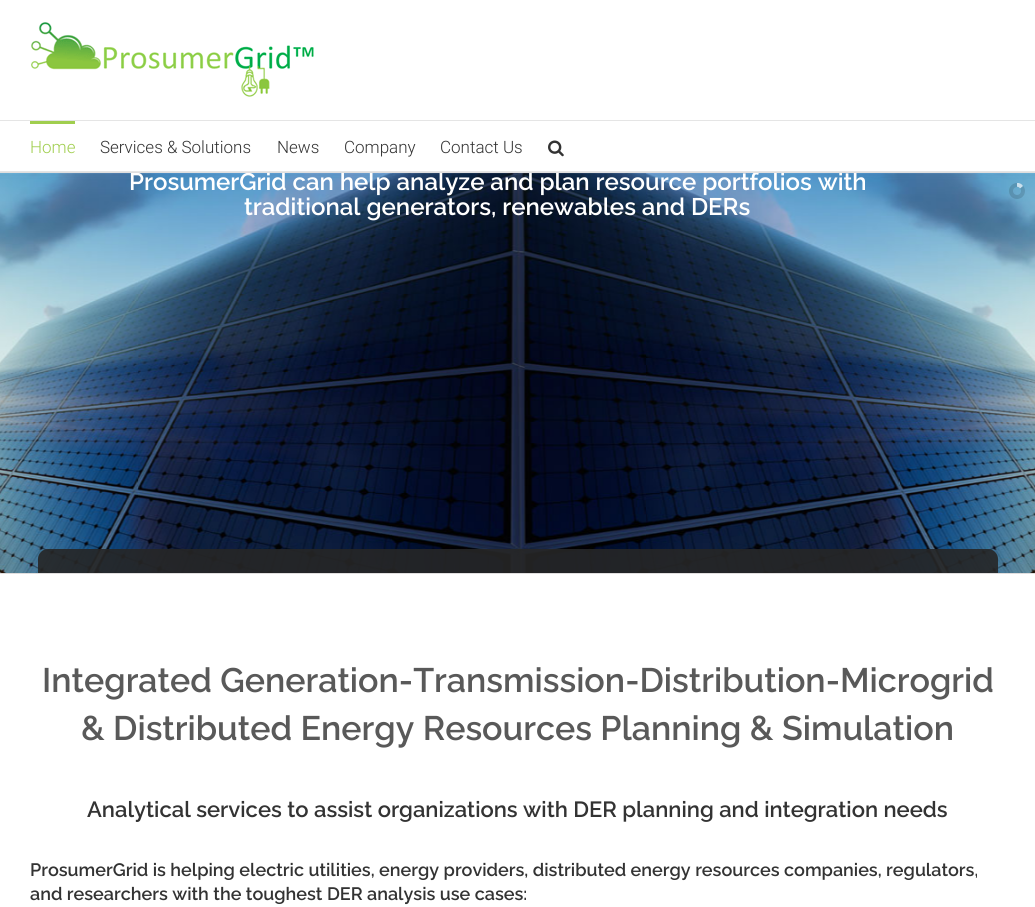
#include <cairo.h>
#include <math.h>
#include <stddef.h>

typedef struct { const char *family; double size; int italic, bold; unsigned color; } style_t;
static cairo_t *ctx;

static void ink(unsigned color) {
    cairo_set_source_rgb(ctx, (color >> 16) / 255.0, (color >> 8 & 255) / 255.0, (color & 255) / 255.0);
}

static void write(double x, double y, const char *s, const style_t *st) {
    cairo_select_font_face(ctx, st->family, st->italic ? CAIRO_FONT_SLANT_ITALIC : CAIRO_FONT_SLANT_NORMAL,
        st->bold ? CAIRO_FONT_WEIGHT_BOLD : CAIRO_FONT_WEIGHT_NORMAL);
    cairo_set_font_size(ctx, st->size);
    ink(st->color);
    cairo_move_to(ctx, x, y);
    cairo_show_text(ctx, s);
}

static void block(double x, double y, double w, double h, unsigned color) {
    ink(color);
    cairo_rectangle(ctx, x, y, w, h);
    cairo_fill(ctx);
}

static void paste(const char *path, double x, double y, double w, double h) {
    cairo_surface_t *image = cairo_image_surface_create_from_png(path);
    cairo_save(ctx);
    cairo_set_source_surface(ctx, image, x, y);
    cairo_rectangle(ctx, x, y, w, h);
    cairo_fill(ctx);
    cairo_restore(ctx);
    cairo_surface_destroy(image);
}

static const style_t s1 = {"Roboto Light", 17, 0, 0, 0xa0ce4e};
static const style_t s2 = {"Roboto Light", 17, 0, 0, 0x333333};
static const style_t s3 = {"Raleway SemiBold", 24, 0, 0, 0xffffff};
static const style_t s4 = {"Raleway SemiBold", 34, 0, 0, 0x595959};
static const style_t s5 = {"Raleway SemiBold", 22, 0, 0, 0x333333};
static const style_t s6 = {"Raleway SemiBold", 18, 0, 0, 0x333333};

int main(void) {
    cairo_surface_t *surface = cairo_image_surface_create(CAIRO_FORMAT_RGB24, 1035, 907);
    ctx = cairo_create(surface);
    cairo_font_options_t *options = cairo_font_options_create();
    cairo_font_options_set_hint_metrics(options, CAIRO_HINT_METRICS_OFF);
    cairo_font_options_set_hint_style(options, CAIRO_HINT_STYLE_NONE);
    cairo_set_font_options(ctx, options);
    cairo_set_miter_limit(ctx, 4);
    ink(0xffffff);
    cairo_paint(ctx);
    block(0, 120, 1035, 1, 0xe5e5e5);
    paste("pic1.png", 31, 22, 283, 75);
    block(0, 171, 1035, 1, 0xe5e5e5);
    block(30, 121, 45, 3, 0xa0ce4e);
    write(30, 153, "Home", &s1);
    write(100, 153, "Services & Solutions", &s2);
    write(277, 153, "News", &s2);
    write(344, 153, "Company", &s2);
    write(440, 153, "Contact Us", &s2);
    paste("pic2.png", 548, 140, 16, 17);
    block(0, 172, 1035, 1, 0xe0dede);
    block(0, 573, 1035, 1, 0xe0dede);
    paste("pic3.png", 0, 173, 1035, 400);
    cairo_save(ctx);
    cairo_rectangle(ctx, 0, 173, 1035, 400);
    cairo_clip(ctx);
    write(129, 190, "ProsumerGrid can help analyze and plan resource portfolios with", &s3);
    cairo_restore(ctx);
    write(244, 215, "traditional generators, renewables and DERs", &s3);
    cairo_set_source_rgba(ctx, 0.149, 0.149, 0.149, 0.9);
    cairo_new_path(ctx);
    cairo_move_to(ctx, 48, 549);
    cairo_line_to(ctx, 988, 549);
    cairo_curve_to(ctx, 993.5, 549, 998, 553.5, 998, 559);
    cairo_line_to(ctx, 998, 573);
    cairo_line_to(ctx, 38, 573);
    cairo_line_to(ctx, 38, 559);
    cairo_curve_to(ctx, 38, 553.5, 42.5, 549, 48, 549);
    cairo_close_path(ctx);
    cairo_fill(ctx);
    cairo_arc(ctx, 1017, 191, 6, 0, 2 * M_PI);
    cairo_set_source_rgba(ctx, 0, 0, 0, 0.13);
    cairo_set_line_width(ctx, 4);
    cairo_stroke(ctx);
    cairo_save(ctx);
    cairo_rectangle(ctx, 1017, 183, 8, 16);
    cairo_clip(ctx);
    cairo_new_path(ctx);
    cairo_move_to(ctx, 1018, 179.5);
    cairo_line_to(ctx, 1023, 186);
    cairo_line_to(ctx, 1011, 196);
    cairo_line_to(ctx, 1005.5, 190);
    cairo_close_path(ctx);
    cairo_clip(ctx);
    cairo_new_path(ctx);
    cairo_move_to(ctx, 1021.5, 187);
    cairo_curve_to(ctx, 1026.5, 193.5, 1017.5, 201, 1012.5, 195);
    cairo_curve_to(ctx, 1007.5, 188.5, 1016.5, 181, 1021.5, 187);
    cairo_close_path(ctx);
    ink(0xcae1ee);
    cairo_stroke(ctx);
    cairo_restore(ctx);
    write(42, 692, "Integrated Generation-Transmission-Distribution-Microgrid", &s4);
    write(81, 740, "& Distributed Energy Resources Planning & Simulation", &s4);
    write(87, 817, "Analytical services to assist organizations with DER planning and integration needs", &s5);
    write(30, 876, "ProsumerGrid is helping electric utilities, energy providers, distributed energy resources companies, regulators,", &s6);
    write(30, 900, "and researchers with the toughest DER analysis use cases:", &s6);
    cairo_surface_write_to_png(surface, "screenshot.png");
    cairo_font_options_destroy(options);
    cairo_destroy(ctx);
    cairo_surface_destroy(surface);
    return 0;
}
